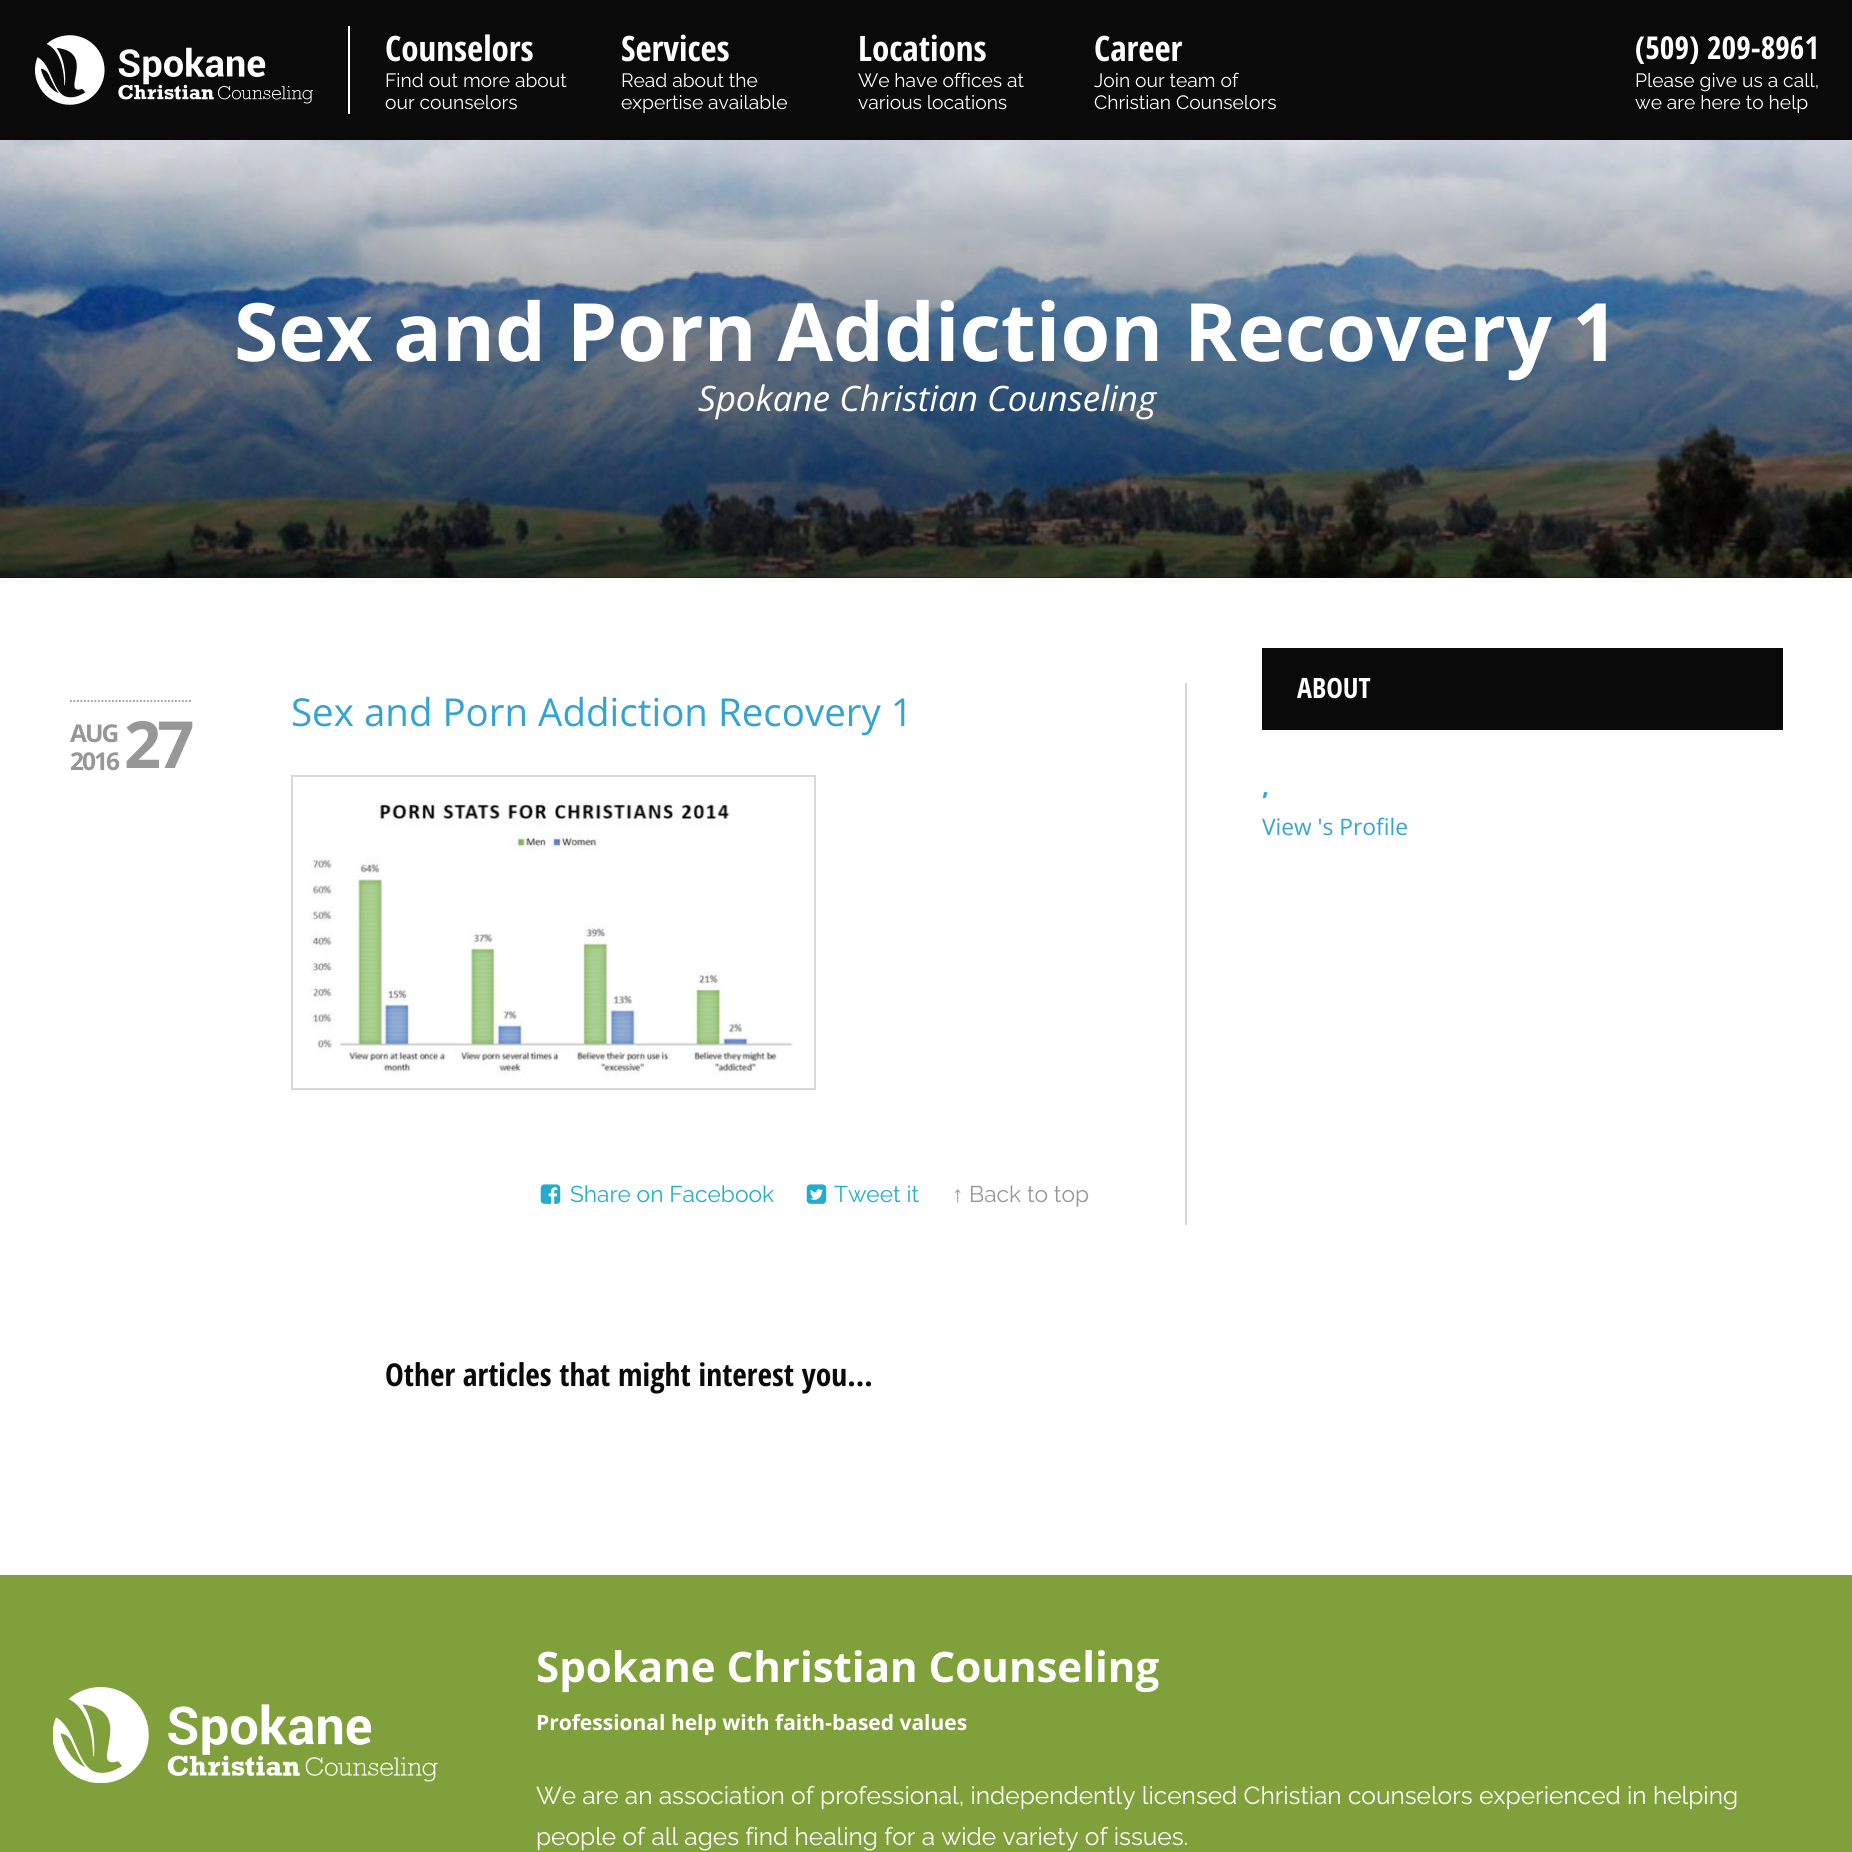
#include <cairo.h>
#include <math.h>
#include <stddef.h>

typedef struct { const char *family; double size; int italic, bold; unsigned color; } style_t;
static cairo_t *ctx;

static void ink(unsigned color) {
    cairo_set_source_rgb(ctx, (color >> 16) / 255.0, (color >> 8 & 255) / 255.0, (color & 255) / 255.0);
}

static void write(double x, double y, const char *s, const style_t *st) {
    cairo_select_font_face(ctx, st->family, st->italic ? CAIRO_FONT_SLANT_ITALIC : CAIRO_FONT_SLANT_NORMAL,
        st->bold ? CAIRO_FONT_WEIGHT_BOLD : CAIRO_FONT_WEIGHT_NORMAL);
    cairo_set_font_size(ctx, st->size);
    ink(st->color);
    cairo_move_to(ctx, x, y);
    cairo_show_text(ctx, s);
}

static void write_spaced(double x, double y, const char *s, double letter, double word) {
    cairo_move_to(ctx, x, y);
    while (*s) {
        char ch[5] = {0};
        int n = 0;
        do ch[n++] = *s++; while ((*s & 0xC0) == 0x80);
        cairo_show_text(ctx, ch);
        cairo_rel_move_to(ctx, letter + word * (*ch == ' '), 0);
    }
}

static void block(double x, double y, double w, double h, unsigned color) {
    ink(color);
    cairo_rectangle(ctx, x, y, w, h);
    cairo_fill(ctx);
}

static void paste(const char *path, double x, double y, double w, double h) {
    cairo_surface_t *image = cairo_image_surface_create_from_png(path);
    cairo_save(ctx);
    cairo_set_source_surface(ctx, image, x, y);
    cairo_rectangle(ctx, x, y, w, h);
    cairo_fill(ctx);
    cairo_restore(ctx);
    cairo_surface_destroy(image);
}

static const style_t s1 = {"Open Sans Condensed", 35, 0, 1, 0xffffff};
static const style_t s2 = {"Raleway Thin", 19.25, 0, 0, 0xffffff};
static const style_t s3 = {"Open Sans Condensed", 31.5, 0, 1, 0xffffff};
static const style_t s4 = {"Open Sans", 80.5, 0, 1, 0xffffff};
static const style_t s5 = {"Open Sans", 35, 1, 0, 0xffffff};
static const style_t s6 = {"Open Sans", 38.5, 0, 0, 0x33a3d5};
static const style_t s7 = {"Raleway Thin", 22.75, 0, 0, 0x22accf};
static const style_t s8 = {"Liberation Serif", 22.75, 0, 0, 0x979797};
static const style_t s9 = {"Raleway Thin", 22.75, 0, 0, 0x979797};
static const style_t s10 = {"Open Sans Condensed", 31.5, 0, 1, 0x0a0a0a};
static const style_t s11 = {"Open Sans Condensed", 28, 0, 1, 0xffffff};
static const style_t s12 = {"Open Sans", 24.5, 0, 1, 0x33a3d5};
static const style_t s13 = {"Open Sans", 22.75, 0, 0, 0x33a3d5};
static const style_t s14 = {"Open Sans", 42, 0, 1, 0xffffff};
static const style_t s15 = {"Open Sans", 21, 0, 1, 0xffffff};
static const style_t s16 = {"Raleway Thin", 24.5, 0, 0, 0xffffff};

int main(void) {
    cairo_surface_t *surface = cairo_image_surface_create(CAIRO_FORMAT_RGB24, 1852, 1852);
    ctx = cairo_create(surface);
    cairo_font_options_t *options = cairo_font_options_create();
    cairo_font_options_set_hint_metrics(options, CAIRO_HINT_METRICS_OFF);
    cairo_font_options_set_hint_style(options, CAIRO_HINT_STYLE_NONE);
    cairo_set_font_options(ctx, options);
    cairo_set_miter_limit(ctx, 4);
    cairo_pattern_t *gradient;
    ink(0xffffff);
    cairo_paint(ctx);
    block(0, 577, 1852, 1, 0x3d3d3d);
    block(0, 0, 1852, 140, 0x0a0a0a);
    paste("pic1.png", 35, 35, 278, 70);
    block(348, 26, 2, 88, 0xffffff);
    write(385, 61, "Counselors", &s1);
    write(385, 87, "Find out more about", &s2);
    write(385, 109, "our counselors", &s2);
    write(621, 61, "Services", &s1);
    write(621, 87, "Read about the", &s2);
    write(621, 109, "expertise available", &s2);
    write(858, 61, "Locations", &s1);
    write(858, 87, "We have offices at", &s2);
    write(858, 109, "various locations", &s2);
    write(1094, 61, "Career", &s1);
    write(1094, 87, "Join our team of", &s2);
    write(1094, 109, "Christian Counselors", &s2);
    write(1635, 59, "(509) 209-8961", &s3);
    write(1635, 87, "Please give us a call,", &s2);
    write(1635, 109, "we are here to help", &s2);
    paste("pic2.png", 0, 140, 1852, 438);
    gradient = cairo_pattern_create_linear(927, 578, 927, 140);
    cairo_pattern_add_color_stop_rgba(gradient, 0, 0, 0, 0, 0.7);
    cairo_pattern_add_color_stop_rgba(gradient, 1, 0, 0, 0, 0.07);
    cairo_set_source(ctx, gradient);
    cairo_pattern_destroy(gradient);
    cairo_rectangle(ctx, 0, 140, 1852, 438);
    cairo_fill(ctx);
    write(234, 361, "Sex and Porn Addiction Recovery 1", &s4);
    write(698, 411, "Spokane Christian Counseling", &s5);
    block(1185, 683, 2, 542, 0xd8d8d8);
    cairo_new_path(ctx);
    cairo_move_to(ctx, 70, 701);
    cairo_line_to(ctx, 192.5, 701);
    ink(0x979797);
    cairo_set_line_width(ctx, 1.8);
    cairo_set_dash(ctx, (double[]){1.75, 1.75}, 2, 0);
    cairo_stroke(ctx);
    cairo_select_font_face(ctx, "Open Sans", CAIRO_FONT_SLANT_NORMAL, CAIRO_FONT_WEIGHT_BOLD);
    cairo_set_font_size(ctx, 24.5);
    write_spaced(70, 742, "AUG", -2, 0);
    write_spaced(70, 770, "2016", -2, 0);
    cairo_set_font_size(ctx, 65);
    write_spaced(124, 768, "27", -4, 0);
    write(291, 726, "Sex and Porn Addiction Recovery 1", &s6);
    cairo_rectangle(ctx, 292, 776, 523, 313);
    ink(0xd8d8d8);
    cairo_set_line_width(ctx, 2);
    cairo_set_dash(ctx, NULL, 0, 0);
    cairo_stroke(ctx);
    paste("pic3.png", 309, 802, 484, 274);
    paste("pic4.png", 540, 1184, 21, 20);
    write(570, 1202, "Share on Facebook", &s7);
    paste("pic5.png", 806, 1184, 21, 20);
    write(834, 1202, "Tweet it", &s7);
    write(952, 1202, "↑", &s8);
    write(969, 1202, "Back to top", &s9);
    write(385, 1386, "Other articles that might interest you...", &s10);
    block(1262, 648, 521, 82, 0x0a0a0a);
    write(1297, 698, "ABOUT", &s11);
    write(1262, 795, ",", &s12);
    write(1262, 835, "View 's Profile", &s13);
    block(0, 1575, 1852, 277, 0x80a03b);
    paste("pic6.png", 53, 1687, 385, 96);
    write(536, 1682, "Spokane Christian Counseling", &s14);
    write(536, 1730, "Professional help with faith-based values", &s15);
    write(536, 1804, "We are an association of professional, independently licensed Christian counselors experienced in helping", &s16);
    write(536, 1845, "people of all ages find healing for a wide variety of issues.", &s16);
    cairo_surface_write_to_png(surface, "screenshot.png");
    cairo_font_options_destroy(options);
    cairo_destroy(ctx);
    cairo_surface_destroy(surface);
    return 0;
}
